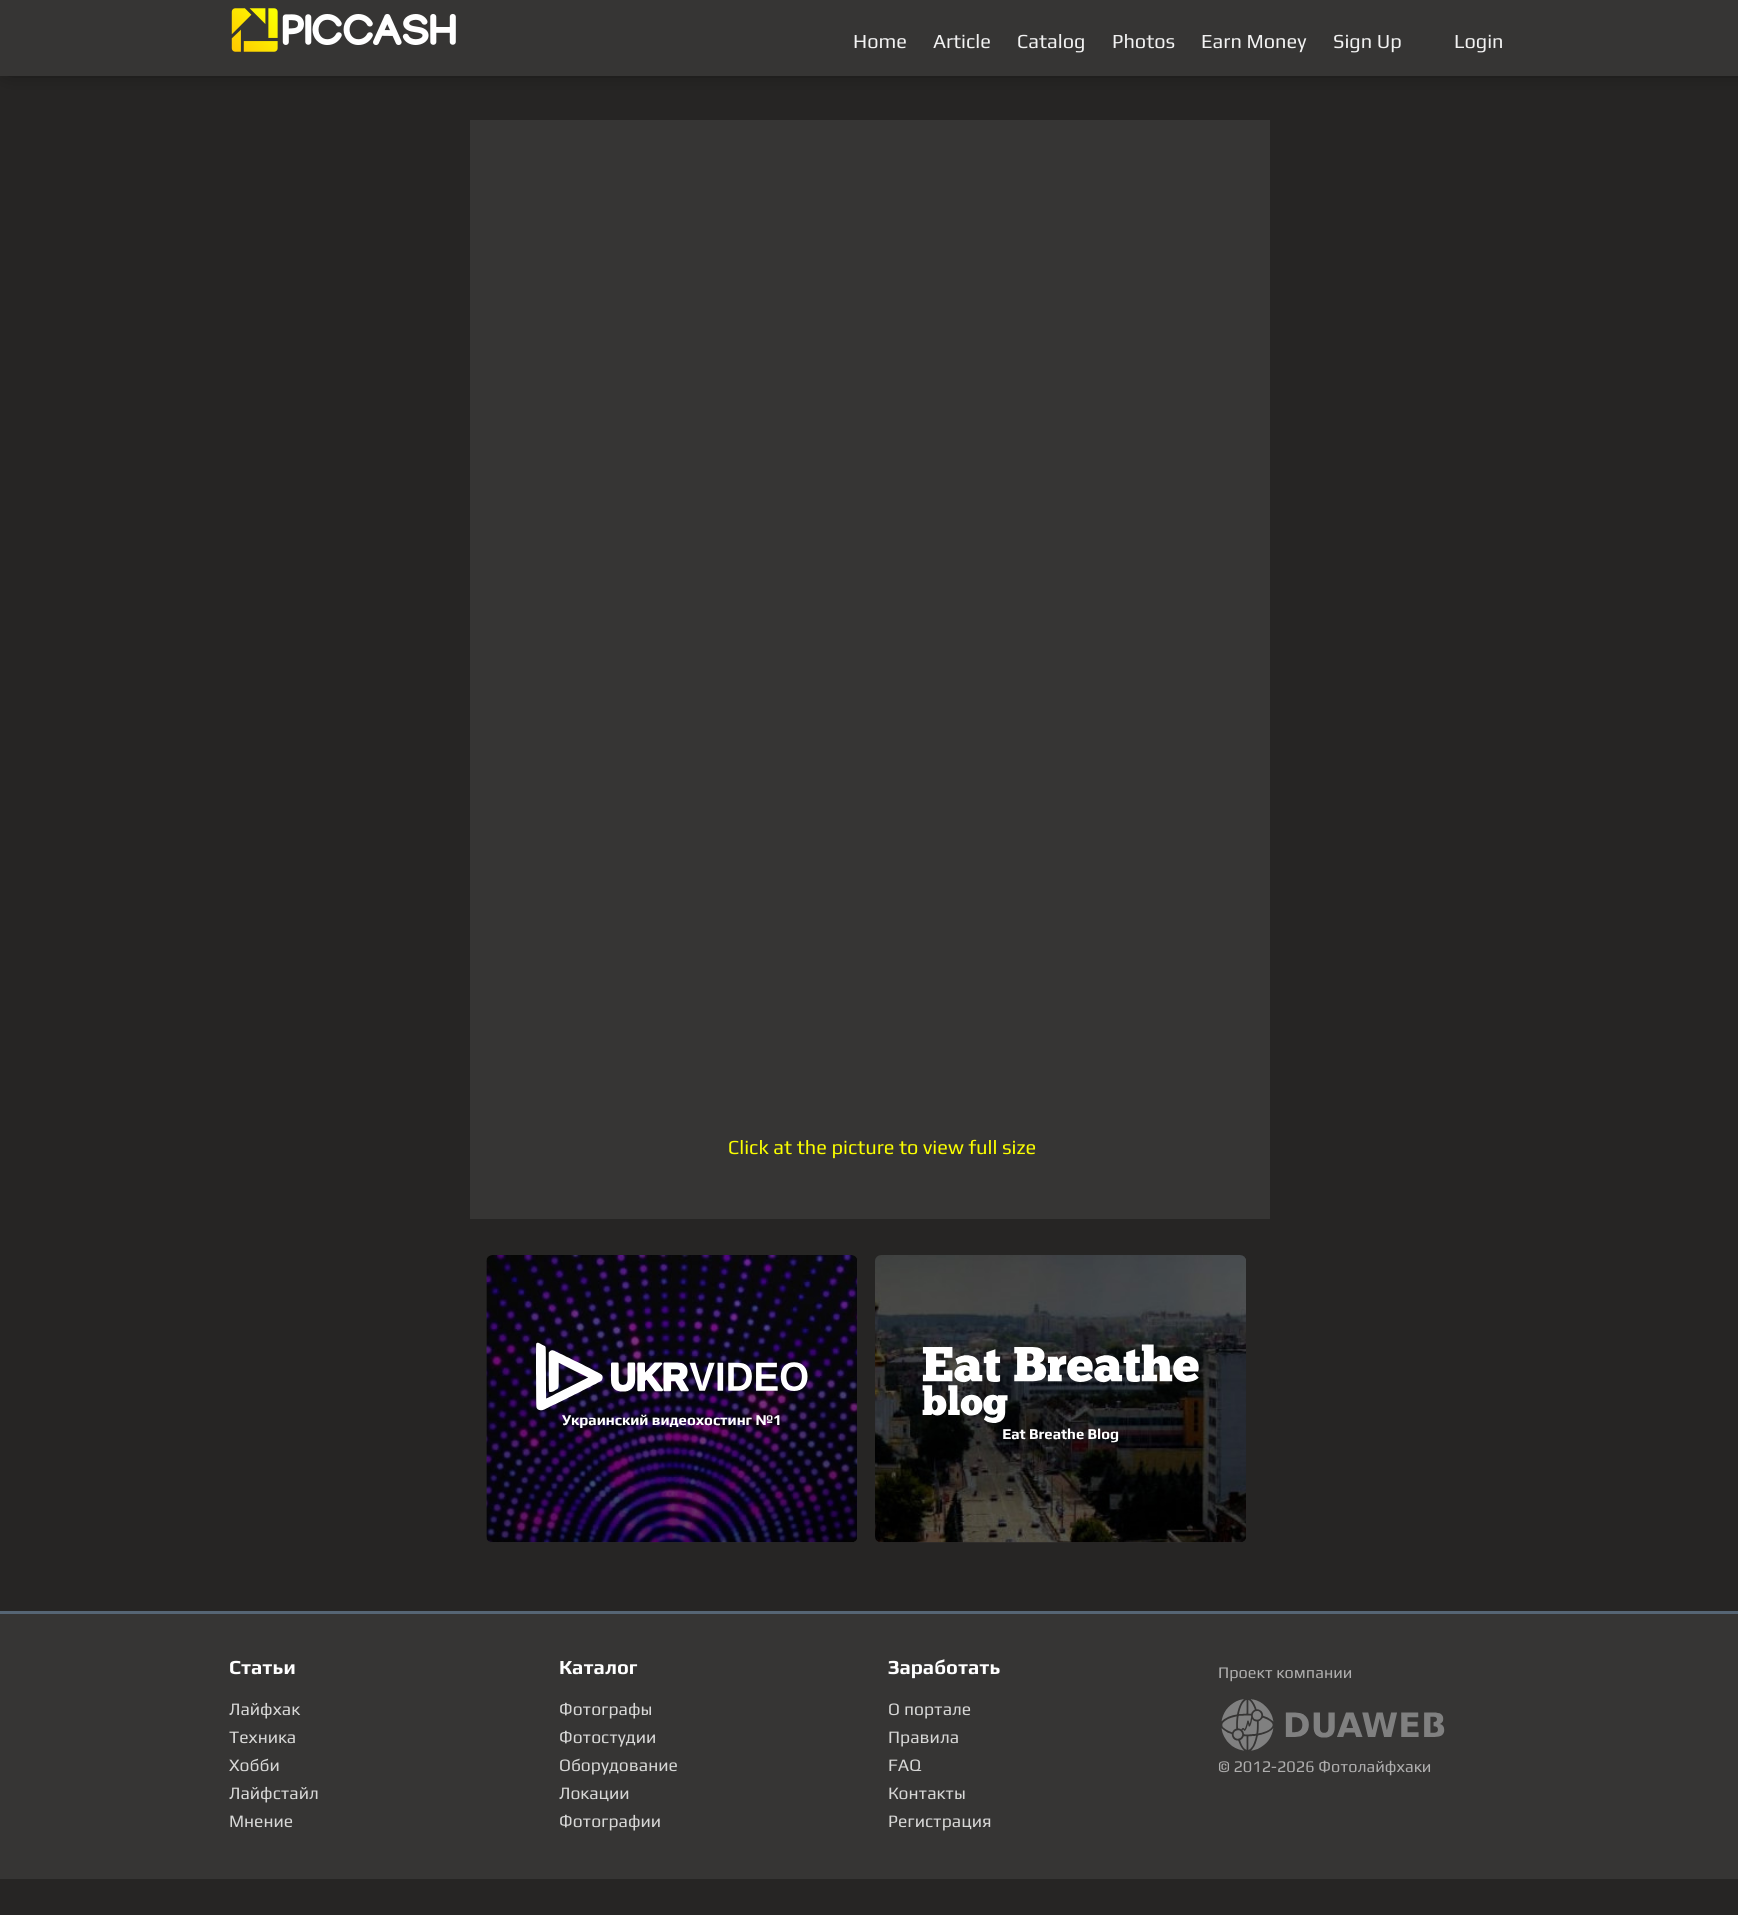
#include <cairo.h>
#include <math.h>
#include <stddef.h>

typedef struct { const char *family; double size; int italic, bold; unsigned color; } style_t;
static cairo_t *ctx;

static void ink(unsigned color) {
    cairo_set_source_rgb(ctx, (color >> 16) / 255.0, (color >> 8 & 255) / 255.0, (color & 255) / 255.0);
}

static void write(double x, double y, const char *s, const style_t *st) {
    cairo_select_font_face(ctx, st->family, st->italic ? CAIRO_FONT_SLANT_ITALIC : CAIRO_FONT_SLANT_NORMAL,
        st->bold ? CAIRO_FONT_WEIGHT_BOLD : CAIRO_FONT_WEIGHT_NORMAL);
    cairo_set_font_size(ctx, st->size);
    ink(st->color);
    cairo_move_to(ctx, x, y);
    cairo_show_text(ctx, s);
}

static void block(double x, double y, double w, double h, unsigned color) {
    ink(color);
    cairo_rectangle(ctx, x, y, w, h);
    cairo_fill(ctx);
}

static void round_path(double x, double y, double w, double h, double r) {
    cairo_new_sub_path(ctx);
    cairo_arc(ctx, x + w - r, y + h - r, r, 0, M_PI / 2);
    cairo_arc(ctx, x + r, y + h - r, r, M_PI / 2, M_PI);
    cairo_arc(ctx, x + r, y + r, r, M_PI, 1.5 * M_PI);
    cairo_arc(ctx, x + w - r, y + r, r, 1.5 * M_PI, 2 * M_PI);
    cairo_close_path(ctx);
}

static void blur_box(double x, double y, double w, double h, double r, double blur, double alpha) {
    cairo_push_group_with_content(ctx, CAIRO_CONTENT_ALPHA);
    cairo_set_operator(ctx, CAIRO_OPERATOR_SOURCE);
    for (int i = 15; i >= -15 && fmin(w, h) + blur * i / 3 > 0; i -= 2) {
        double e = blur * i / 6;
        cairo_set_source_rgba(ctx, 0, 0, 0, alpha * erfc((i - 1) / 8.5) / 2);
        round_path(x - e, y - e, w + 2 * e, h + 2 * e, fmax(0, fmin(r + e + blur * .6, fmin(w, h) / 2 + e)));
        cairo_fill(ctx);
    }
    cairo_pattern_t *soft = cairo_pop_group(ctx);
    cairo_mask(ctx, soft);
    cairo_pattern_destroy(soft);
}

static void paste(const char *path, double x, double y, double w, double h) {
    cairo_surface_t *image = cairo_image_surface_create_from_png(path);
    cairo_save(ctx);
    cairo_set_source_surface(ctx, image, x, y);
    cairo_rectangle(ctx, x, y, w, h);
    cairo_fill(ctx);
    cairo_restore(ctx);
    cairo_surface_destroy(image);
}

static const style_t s1 = {"Play", 20, 0, 0, 0xf2f2f2};
static const style_t s2 = {"Play", 20, 0, 0, 0xfbff00};
static const style_t s3 = {"Play", 20, 0, 1, 0xffffff};
static const style_t s4 = {"Play", 17.5, 0, 0, 0xd7d7d6};
static const style_t s5 = {"Play", 16.25, 0, 0, 0xafaeae};

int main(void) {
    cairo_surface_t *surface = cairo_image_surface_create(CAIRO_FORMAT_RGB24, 1738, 1915);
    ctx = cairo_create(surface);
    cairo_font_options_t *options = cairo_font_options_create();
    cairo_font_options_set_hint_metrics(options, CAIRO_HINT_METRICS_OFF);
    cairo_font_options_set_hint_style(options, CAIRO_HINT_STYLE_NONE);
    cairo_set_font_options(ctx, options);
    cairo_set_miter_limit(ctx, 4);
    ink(0x262524);
    cairo_paint(ctx);
    ink(0x000000);
    blur_box(9, -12, 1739, 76, 0, 12, 1);
    block(0, 0, 1738, 76, 0x363534);
    paste("pic1.png", 231, 8, 225, 44);
    write(853, 48, "Home", &s1);
    write(933, 48, "Article", &s1);
    write(1017, 48, "Catalog", &s1);
    write(1112, 48, "Photos", &s1);
    write(1201, 48, "Earn Money", &s1);
    write(1333, 48, "Sign Up", &s1);
    write(1454, 48, "Login", &s1);
    block(470, 120, 800, 1099, 0x363534);
    write(728, 1154, "Click at the picture to view full size", &s2);
    paste("pic2.png", 486, 1255, 760, 288);
    block(0, 1614, 1738, 265, 0x363534);
    block(0, 1611, 1738, 3, 0x566574);
    write(229, 1674, "Статьи", &s3);
    write(229, 1715, "Лайфхак", &s4);
    write(229, 1743, "Техника", &s4);
    write(229, 1771, "Хобби", &s4);
    write(229, 1799, "Лайфстайл", &s4);
    write(229, 1827, "Мнение", &s4);
    write(559, 1674, "Каталог", &s3);
    write(559, 1715, "Фотографы", &s4);
    write(559, 1743, "Фотостудии", &s4);
    write(559, 1771, "Оборудование", &s4);
    write(559, 1799, "Локации", &s4);
    write(559, 1827, "Фотографии", &s4);
    write(888, 1674, "Заработать", &s3);
    write(888, 1715, "О портале", &s4);
    write(888, 1743, "Правила", &s4);
    write(888, 1771, "FAQ", &s4);
    write(888, 1799, "Контакты", &s4);
    write(888, 1827, "Регистрация", &s4);
    write(1218, 1678, "Проект компании", &s5);
    paste("pic3.png", 1221, 1699, 224, 52);
    write(1218, 1772, "© 2012-2026 Фотолайфхаки", &s5);
    cairo_surface_write_to_png(surface, "screenshot.png");
    cairo_font_options_destroy(options);
    cairo_destroy(ctx);
    cairo_surface_destroy(surface);
    return 0;
}
